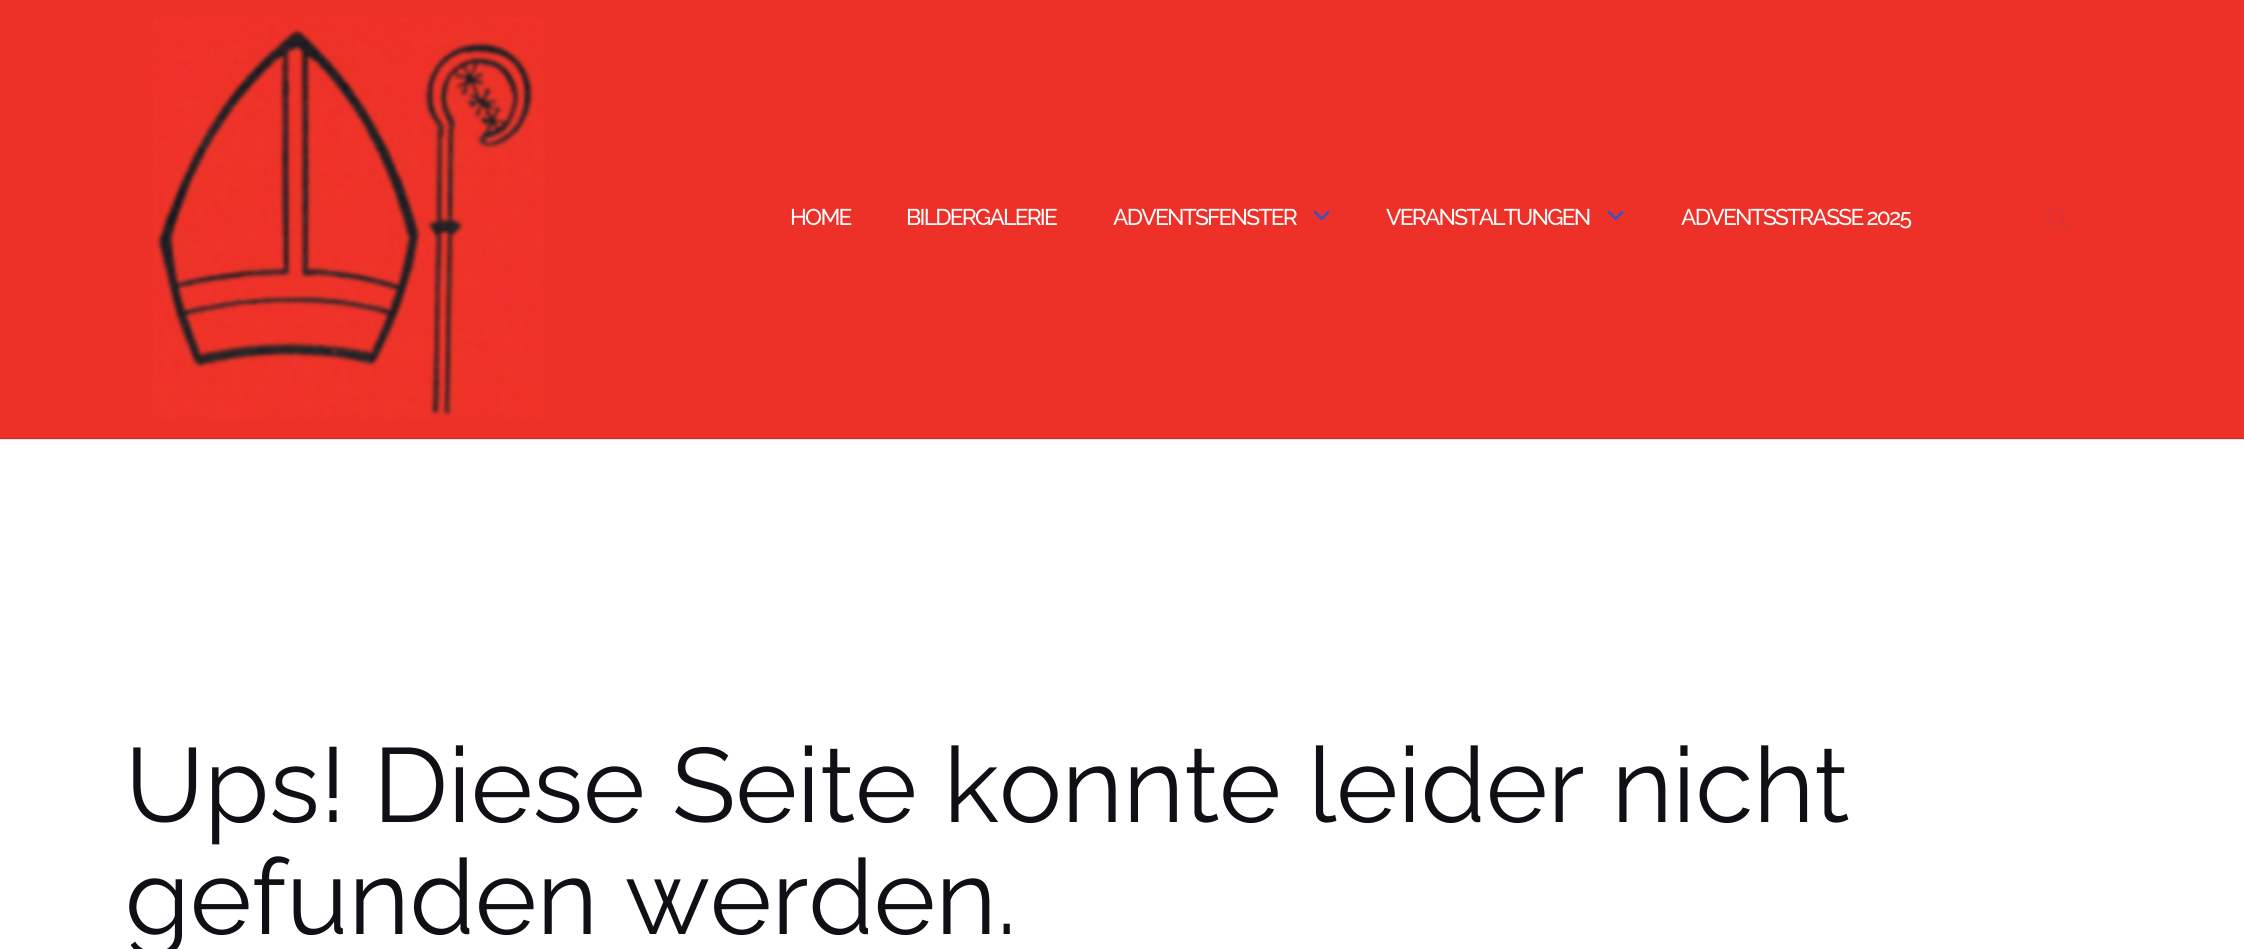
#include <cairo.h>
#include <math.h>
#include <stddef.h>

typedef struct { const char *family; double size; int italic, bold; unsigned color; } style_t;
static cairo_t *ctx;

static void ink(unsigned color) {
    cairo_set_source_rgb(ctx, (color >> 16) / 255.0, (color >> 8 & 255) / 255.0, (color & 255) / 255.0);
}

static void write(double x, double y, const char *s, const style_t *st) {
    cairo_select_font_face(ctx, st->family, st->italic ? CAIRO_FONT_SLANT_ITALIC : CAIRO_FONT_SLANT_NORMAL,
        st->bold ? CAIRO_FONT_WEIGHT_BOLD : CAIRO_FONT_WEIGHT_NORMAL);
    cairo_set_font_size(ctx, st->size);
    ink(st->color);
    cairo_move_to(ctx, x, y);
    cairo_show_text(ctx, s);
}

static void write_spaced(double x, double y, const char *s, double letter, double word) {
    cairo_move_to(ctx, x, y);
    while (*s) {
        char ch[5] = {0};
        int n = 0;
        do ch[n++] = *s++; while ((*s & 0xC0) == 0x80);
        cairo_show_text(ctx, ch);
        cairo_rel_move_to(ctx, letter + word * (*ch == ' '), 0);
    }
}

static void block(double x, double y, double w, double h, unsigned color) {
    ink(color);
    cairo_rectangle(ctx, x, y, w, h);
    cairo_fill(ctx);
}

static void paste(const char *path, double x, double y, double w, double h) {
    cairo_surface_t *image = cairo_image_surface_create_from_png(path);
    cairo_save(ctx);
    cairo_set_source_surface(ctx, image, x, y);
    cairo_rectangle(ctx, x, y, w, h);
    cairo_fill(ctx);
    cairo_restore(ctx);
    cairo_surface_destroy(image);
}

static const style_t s1 = {"Raleway", 105, 0, 0, 0x0e1015};

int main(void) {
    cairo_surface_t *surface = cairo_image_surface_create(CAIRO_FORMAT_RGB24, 2244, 949);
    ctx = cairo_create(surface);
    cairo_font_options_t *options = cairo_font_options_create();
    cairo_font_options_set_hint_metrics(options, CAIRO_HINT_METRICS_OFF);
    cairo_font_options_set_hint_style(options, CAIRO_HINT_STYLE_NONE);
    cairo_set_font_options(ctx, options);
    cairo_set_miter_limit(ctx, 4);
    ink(0xffffff);
    cairo_paint(ctx);
    block(0, 439, 2244, 1, 0xe6e6e6);
    block(0, 0, 2244, 438, 0xed3028);
    block(0, 438, 2244, 1, 0xd52b24);
    paste("pic1.png", 153, 18, 392, 401);
    cairo_select_font_face(ctx, "Raleway Medium", CAIRO_FONT_SLANT_NORMAL, CAIRO_FONT_WEIGHT_NORMAL);
    cairo_set_font_size(ctx, 22.75);
    ink(0xfdfdfd);
    write_spaced(790, 225, "HOME", -1.75, 0);
    write_spaced(906, 225, "BILDERGALERIE", -1.75, 0);
    write_spaced(1113, 225, "ADVENTSFENSTER", -1.75, 0);
    paste("pic2.png", 1313, 210, 17, 10);
    write_spaced(1386, 225, "VERANSTALTUNGEN", -1.75, 0);
    paste("pic2.png", 1607, 210, 17, 10);
    write_spaced(1681, 225, "ADVENTSSTRASSE 2025", -1.75, 0);
    paste("pic3.png", 2046, 206, 24, 25);
    write(125, 822, "Ups! Diese Seite konnte leider nicht", &s1);
    write(125, 934, "gefunden werden.", &s1);
    cairo_surface_write_to_png(surface, "screenshot.png");
    cairo_font_options_destroy(options);
    cairo_destroy(ctx);
    cairo_surface_destroy(surface);
    return 0;
}
